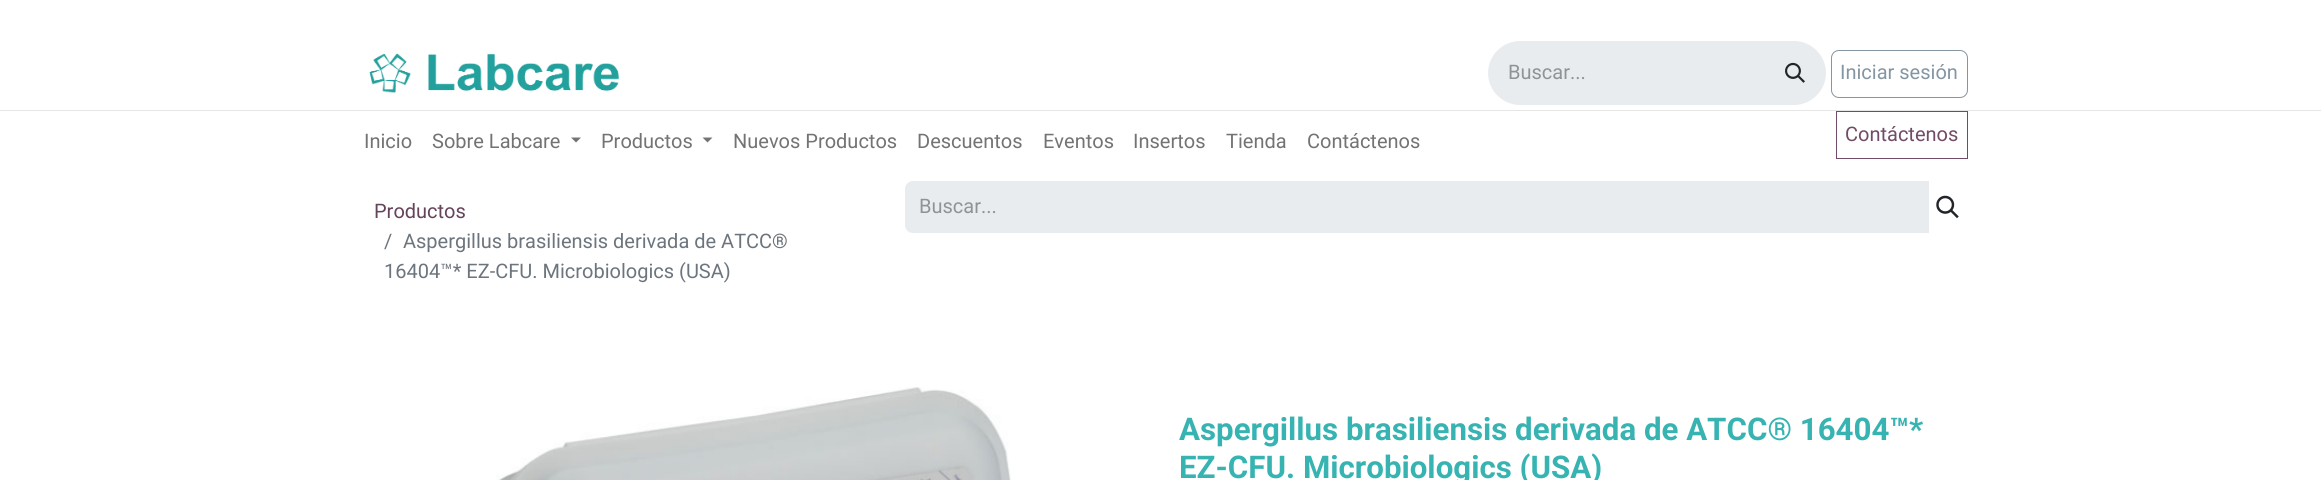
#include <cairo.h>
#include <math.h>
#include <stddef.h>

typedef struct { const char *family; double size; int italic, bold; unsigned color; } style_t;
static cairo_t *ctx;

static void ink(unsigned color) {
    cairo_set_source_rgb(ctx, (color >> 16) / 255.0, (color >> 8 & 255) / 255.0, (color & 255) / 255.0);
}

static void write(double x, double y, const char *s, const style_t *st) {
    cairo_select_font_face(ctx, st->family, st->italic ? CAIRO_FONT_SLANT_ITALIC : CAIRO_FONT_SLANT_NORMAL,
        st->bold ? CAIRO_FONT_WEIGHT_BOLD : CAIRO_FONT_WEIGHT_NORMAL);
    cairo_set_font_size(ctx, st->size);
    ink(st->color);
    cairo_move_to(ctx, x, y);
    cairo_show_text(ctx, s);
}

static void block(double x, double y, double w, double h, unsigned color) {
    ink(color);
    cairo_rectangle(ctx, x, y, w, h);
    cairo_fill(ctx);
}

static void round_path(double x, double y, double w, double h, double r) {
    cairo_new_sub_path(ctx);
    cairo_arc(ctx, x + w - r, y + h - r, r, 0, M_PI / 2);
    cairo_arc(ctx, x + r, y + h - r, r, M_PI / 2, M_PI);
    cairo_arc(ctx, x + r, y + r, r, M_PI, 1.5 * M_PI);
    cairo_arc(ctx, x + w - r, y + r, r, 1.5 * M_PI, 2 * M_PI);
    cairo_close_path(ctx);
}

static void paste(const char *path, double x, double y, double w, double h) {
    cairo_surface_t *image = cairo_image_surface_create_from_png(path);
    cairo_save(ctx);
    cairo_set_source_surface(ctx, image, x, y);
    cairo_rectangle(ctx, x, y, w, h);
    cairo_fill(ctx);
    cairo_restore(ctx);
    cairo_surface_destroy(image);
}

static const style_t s1 = {"Roboto", 20, 0, 0, 0x909294};
static const style_t s2 = {"Roboto", 20, 0, 0, 0x8595a2};
static const style_t s3 = {"Roboto", 20, 0, 0, 0x737373};
static const style_t s4 = {"Roboto", 20, 0, 0, 0x714b67};
static const style_t s5 = {"Roboto", 20, 0, 0, 0x65435c};
static const style_t s6 = {"Roboto", 20, 0, 0, 0x6c757d};
static const style_t s7 = {"Roboto", 31.25, 0, 1, 0x37b4b2};

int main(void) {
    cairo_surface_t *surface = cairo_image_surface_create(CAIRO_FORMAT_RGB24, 2321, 480);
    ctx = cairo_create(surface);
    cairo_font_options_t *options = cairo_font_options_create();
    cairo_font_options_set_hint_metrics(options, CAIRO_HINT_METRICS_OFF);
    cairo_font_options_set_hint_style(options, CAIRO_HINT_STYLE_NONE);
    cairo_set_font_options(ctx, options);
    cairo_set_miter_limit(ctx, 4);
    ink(0xffffff);
    cairo_paint(ctx);
    paste("pic1.png", 369, 53, 250, 40);
    ink(0xe9ecef);
    cairo_new_path(ctx);
    cairo_move_to(ctx, 1520, 41);
    cairo_line_to(ctx, 1765, 41);
    cairo_line_to(ctx, 1765, 105);
    cairo_line_to(ctx, 1520, 105);
    cairo_curve_to(ctx, 1502.5, 105, 1488, 90.5, 1488, 73);
    cairo_curve_to(ctx, 1488, 55.5, 1502.5, 41, 1520, 41);
    cairo_close_path(ctx);
    cairo_fill(ctx);
    write(1508, 79, "Buscar...", &s1);
    ink(0xe9ecef);
    cairo_new_path(ctx);
    cairo_move_to(ctx, 1764, 41);
    cairo_line_to(ctx, 1794, 41);
    cairo_curve_to(ctx, 1811.5, 41, 1826, 55.5, 1826, 73);
    cairo_curve_to(ctx, 1826, 90.5, 1811.5, 105, 1794, 105);
    cairo_line_to(ctx, 1764, 105);
    cairo_close_path(ctx);
    cairo_fill(ctx);
    paste("pic2.png", 1785, 62, 20, 21);
    round_path(1831.5, 50.5, 136, 47, 7.5);
    ink(0x8595a2);
    cairo_set_line_width(ctx, 1);
    cairo_stroke(ctx);
    write(1840, 79, "Iniciar sesión", &s2);
    block(0, 110, 2321, 1, 0xe6e6e6);
    write(364, 148, "Inicio", &s3);
    write(432, 148, "Sobre Labcare", &s3);
    cairo_new_path(ctx);
    cairo_move_to(ctx, 571, 137.5);
    cairo_line_to(ctx, 581, 137.5);
    cairo_line_to(ctx, 576, 142.5);
    cairo_close_path(ctx);
    cairo_fill(ctx);
    write(601, 148, "Productos", &s3);
    cairo_new_path(ctx);
    cairo_move_to(ctx, 702.5, 137.5);
    cairo_line_to(ctx, 712.5, 137.5);
    cairo_line_to(ctx, 707.5, 142.5);
    cairo_close_path(ctx);
    cairo_fill(ctx);
    write(733, 148, "Nuevos Productos", &s3);
    write(917, 148, "Descuentos", &s3);
    write(1043, 148, "Eventos", &s3);
    write(1133, 148, "Insertos", &s3);
    write(1226, 148, "Tienda", &s3);
    write(1307, 148, "Contáctenos", &s3);
    cairo_rectangle(ctx, 1836.5, 111.5, 131, 47);
    ink(0x714b67);
    cairo_stroke(ctx);
    write(1845, 141, "Contáctenos", &s4);
    write(374, 218, "Productos", &s5);
    write(384, 248, "/", &s6);
    write(403, 248, "Aspergillus brasiliensis derivada de ATCC®", &s6);
    write(384, 278, "16404™* EZ-CFU. Microbiologics (USA)", &s6);
    ink(0xe9ecef);
    cairo_new_path(ctx);
    cairo_move_to(ctx, 913, 181);
    cairo_line_to(ctx, 1929, 181);
    cairo_line_to(ctx, 1929, 233);
    cairo_line_to(ctx, 913, 233);
    cairo_curve_to(ctx, 908.5, 233, 905, 229.5, 905, 225);
    cairo_line_to(ctx, 905, 189);
    cairo_curve_to(ctx, 905, 184.5, 908.5, 181, 913, 181);
    cairo_close_path(ctx);
    cairo_fill(ctx);
    write(919, 213, "Buscar...", &s1);
    paste("pic3.png", 1936, 195, 23, 24);
    paste("pic4.png", 496, 387, 515, 93);
    write(1179, 440, "Aspergillus brasiliensis derivada de ATCC® 16404™*", &s7);
    write(1179, 478, "EZ-CFU. Microbiologics (USA)", &s7);
    cairo_surface_write_to_png(surface, "screenshot.png");
    cairo_font_options_destroy(options);
    cairo_destroy(ctx);
    cairo_surface_destroy(surface);
    return 0;
}
